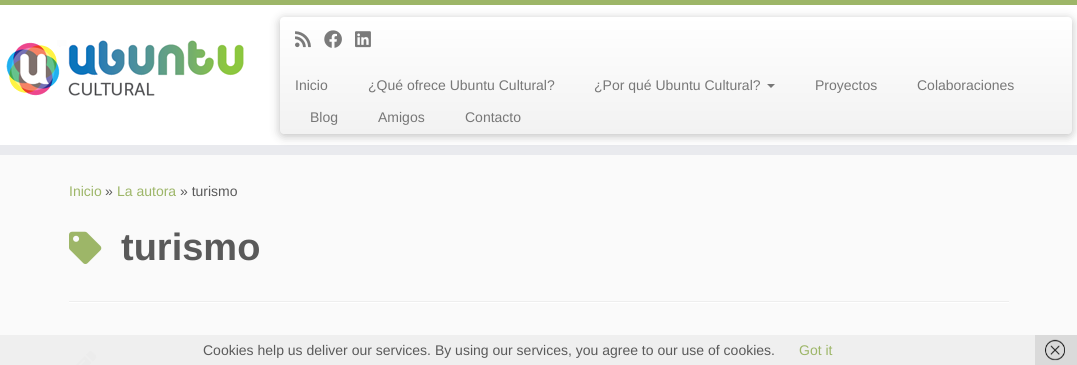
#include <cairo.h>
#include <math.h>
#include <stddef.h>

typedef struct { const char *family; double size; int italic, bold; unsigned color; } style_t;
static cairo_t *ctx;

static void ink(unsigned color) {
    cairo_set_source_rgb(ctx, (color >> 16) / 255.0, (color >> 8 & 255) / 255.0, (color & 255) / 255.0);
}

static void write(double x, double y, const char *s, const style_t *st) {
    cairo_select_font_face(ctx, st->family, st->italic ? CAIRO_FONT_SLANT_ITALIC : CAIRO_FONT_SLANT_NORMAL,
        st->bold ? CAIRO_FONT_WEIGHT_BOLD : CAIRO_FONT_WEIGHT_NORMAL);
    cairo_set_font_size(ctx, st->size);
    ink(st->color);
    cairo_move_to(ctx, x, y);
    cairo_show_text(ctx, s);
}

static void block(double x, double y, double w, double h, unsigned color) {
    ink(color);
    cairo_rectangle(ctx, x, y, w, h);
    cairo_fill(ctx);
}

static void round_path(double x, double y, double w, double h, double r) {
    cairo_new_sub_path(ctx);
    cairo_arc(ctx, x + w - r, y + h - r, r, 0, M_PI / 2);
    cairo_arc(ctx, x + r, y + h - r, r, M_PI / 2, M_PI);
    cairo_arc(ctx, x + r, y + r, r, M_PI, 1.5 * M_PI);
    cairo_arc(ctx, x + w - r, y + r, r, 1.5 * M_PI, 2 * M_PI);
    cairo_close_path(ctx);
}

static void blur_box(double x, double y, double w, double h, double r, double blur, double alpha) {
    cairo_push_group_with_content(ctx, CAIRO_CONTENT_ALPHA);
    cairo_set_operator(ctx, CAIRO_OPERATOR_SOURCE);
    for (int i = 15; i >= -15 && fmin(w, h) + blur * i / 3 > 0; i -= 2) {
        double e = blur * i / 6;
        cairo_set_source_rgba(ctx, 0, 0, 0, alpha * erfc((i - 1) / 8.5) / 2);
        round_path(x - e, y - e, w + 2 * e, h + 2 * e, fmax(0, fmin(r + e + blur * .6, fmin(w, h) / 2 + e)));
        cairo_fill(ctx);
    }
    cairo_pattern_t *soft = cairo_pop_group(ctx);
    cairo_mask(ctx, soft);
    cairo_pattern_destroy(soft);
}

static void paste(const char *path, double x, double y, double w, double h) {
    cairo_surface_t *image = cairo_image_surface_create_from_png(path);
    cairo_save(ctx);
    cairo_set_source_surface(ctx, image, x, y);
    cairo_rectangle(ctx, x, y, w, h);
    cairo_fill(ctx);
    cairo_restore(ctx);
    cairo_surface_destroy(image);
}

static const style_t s1 = {"Liberation Sans", 14, 0, 0, 0x777777};
static const style_t s2 = {"Liberation Sans", 14, 0, 0, 0x9db668};
static const style_t s3 = {"Liberation Sans", 14, 0, 0, 0x5a5a5a};
static const style_t s4 = {"Liberation Sans", 38, 0, 1, 0x5a5a5a};

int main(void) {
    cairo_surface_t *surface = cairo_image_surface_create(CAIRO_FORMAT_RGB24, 1077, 365);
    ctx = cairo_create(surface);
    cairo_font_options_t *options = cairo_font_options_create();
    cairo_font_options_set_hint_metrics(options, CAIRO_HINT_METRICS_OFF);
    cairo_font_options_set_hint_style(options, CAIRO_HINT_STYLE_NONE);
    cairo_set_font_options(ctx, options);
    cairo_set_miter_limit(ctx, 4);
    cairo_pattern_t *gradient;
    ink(0xfafafa);
    cairo_paint(ctx);
    block(0, 335, 1035, 30, 0xefefef);
    block(0, 5, 1077, 140, 0xffffff);
    block(0, 0, 1077, 5, 0x9db668);
    block(0, 145, 1077, 10, 0xe9eaee);
    paste("pic1.png", 6, 40, 238, 56);
    ink(0x000000);
    blur_box(280, 19, 792, 117, 4, 5, 0.25);
    gradient = cairo_pattern_create_linear(676, 17, 676, 134);
    cairo_pattern_add_color_stop_rgba(gradient, 0, 1, 1, 1, 1);
    cairo_pattern_add_color_stop_rgba(gradient, 1, 0.949, 0.949, 0.949, 1);
    cairo_set_source(ctx, gradient);
    cairo_pattern_destroy(gradient);
    round_path(280, 17, 792, 117, 4);
    cairo_fill(ctx);
    paste("pic2.png", 295, 31, 16, 17);
    paste("pic3.png", 324, 30, 18, 18);
    paste("pic4.png", 355, 31, 16, 17);
    write(295, 90, "Inicio", &s1);
    write(368, 90, "¿Qué ofrece Ubuntu Cultural?", &s1);
    write(594, 90, "¿Por qué Ubuntu Cultural?", &s1);
    cairo_new_path(ctx);
    cairo_move_to(ctx, 767, 84);
    cairo_line_to(ctx, 775, 84);
    cairo_line_to(ctx, 771, 88);
    cairo_close_path(ctx);
    cairo_fill(ctx);
    write(815, 90, "Proyectos", &s1);
    write(917, 90, "Colaboraciones", &s1);
    write(310, 122, "Blog", &s1);
    write(378, 122, "Amigos", &s1);
    write(465, 122, "Contacto", &s1);
    write(69, 196, "Inicio", &s2);
    write(105, 196, "»", &s3);
    write(117, 196, "La autora", &s2);
    write(180, 196, "» turismo", &s3);
    paste("pic5.png", 69, 231, 33, 33);
    write(121, 260, "turismo", &s4);
    block(69, 301, 940, 1, 0xeeeeee);
    block(69, 302, 940, 1, 0xffffff);
    paste("pic6.png", 76, 351, 21, 14);
    write(203, 355, "Cookies help us deliver our services. By using our services, you agree to our use of cookies.", &s3);
    write(799, 355, "Got it", &s2);
    block(1035, 335, 42, 30, 0xdadada);
    paste("pic7.png", 1045, 339, 20, 22);
    cairo_surface_write_to_png(surface, "screenshot.png");
    cairo_font_options_destroy(options);
    cairo_destroy(ctx);
    cairo_surface_destroy(surface);
    return 0;
}
